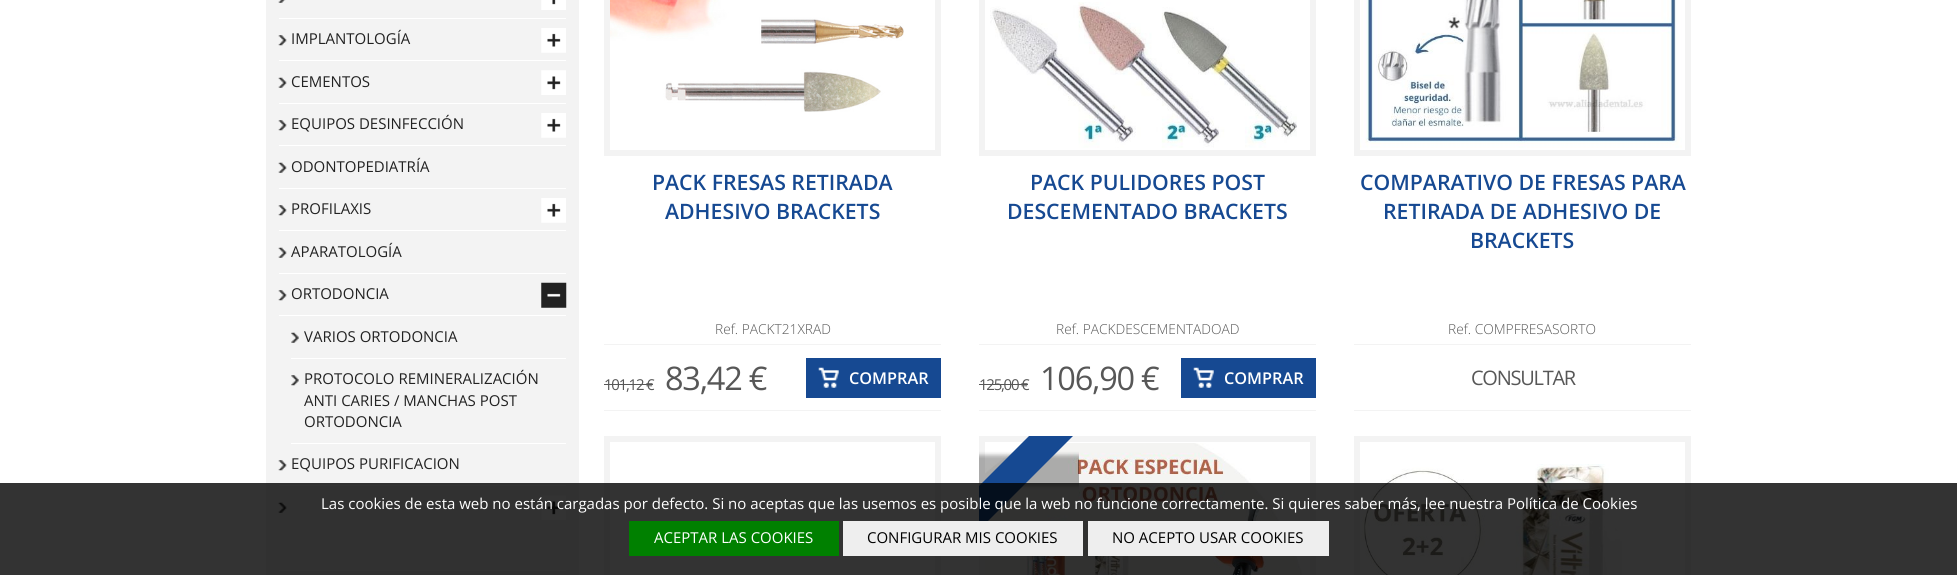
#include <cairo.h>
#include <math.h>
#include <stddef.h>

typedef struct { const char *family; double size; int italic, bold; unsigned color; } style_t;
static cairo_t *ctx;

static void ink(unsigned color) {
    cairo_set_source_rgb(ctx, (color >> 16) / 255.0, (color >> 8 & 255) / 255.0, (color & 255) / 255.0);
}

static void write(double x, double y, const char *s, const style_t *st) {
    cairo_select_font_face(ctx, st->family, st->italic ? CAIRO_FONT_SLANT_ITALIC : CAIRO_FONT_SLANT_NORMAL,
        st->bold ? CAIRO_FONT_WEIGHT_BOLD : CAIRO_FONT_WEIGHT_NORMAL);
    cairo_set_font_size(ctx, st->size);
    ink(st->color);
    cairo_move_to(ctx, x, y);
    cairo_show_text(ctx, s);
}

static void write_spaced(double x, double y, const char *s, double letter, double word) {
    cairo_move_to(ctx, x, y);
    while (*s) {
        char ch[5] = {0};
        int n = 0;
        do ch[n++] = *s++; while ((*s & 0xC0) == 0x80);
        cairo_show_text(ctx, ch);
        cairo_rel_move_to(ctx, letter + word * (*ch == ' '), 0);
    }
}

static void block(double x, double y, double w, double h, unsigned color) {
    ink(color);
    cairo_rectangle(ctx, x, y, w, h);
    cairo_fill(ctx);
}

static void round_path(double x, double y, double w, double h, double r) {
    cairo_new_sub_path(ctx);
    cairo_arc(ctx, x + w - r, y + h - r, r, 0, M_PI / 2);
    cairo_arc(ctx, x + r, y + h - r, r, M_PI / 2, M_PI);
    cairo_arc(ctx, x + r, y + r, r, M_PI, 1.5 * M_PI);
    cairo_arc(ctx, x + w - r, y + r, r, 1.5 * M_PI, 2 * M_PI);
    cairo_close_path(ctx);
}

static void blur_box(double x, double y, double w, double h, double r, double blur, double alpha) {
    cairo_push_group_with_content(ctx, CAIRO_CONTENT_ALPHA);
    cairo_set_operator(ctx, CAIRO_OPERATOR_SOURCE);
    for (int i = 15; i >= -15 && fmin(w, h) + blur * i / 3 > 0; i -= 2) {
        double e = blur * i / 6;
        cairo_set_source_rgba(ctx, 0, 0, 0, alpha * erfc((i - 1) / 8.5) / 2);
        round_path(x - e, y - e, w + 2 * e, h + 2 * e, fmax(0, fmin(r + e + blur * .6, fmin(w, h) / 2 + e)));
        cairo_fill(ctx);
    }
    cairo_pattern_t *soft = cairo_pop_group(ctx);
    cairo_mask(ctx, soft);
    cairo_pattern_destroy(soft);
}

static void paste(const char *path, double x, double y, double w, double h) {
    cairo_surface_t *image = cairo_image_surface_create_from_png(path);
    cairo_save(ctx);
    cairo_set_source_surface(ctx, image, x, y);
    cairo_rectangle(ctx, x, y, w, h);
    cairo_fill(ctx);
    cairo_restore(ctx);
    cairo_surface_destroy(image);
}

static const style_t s1 = {"Open Sans", 15, 0, 0, 0x222222};
static const style_t s2 = {"Open Sans SemiBold", 21.25, 0, 0, 0x164992};
static const style_t s3 = {"Open Sans Light", 13.75, 0, 0, 0x575757};
static const style_t s4 = {"Open Sans SemiBold", 16.25, 0, 0, 0xffffff};
static const style_t s5 = {"Open Sans", 15, 0, 0, 0xffffff};
static const style_t s6 = {"Open Sans", 15, 0, 0, 0x000000};

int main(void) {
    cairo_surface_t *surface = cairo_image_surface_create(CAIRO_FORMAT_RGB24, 1957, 575);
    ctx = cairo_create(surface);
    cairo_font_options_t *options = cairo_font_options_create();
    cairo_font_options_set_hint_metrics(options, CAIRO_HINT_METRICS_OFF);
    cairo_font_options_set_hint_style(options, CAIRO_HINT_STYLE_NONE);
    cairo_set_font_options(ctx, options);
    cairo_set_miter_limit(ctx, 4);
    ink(0xffffff);
    cairo_paint(ctx);
    block(266, 0, 313, 575, 0xf3f3f3);
    paste("pic1.png", 278, 0, 8, 3);
    block(279, 18, 287, 1, 0xffffff);
    paste("pic2.png", 541, 0, 25, 10);
    paste("pic3.png", 278, 35, 9, 11);
    block(279, 60, 287, 1, 0xffffff);
    write(291, 44, "IMPLANTOLOGÍA", &s1);
    paste("pic4.png", 541, 28, 25, 25);
    paste("pic5.png", 278, 77, 9, 11);
    block(279, 103, 287, 1, 0xffffff);
    write(291, 87, "CEMENTOS", &s1);
    paste("pic6.png", 541, 70, 25, 25);
    paste("pic3.png", 278, 120, 9, 11);
    block(279, 145, 287, 1, 0xffffff);
    write(291, 129, "EQUIPOS DESINFECCIÓN", &s1);
    paste("pic4.png", 541, 113, 25, 25);
    paste("pic5.png", 278, 162, 9, 11);
    block(279, 188, 287, 1, 0xffffff);
    write(291, 172, "ODONTOPEDIATRÍA", &s1);
    paste("pic3.png", 278, 205, 9, 11);
    block(279, 230, 287, 1, 0xffffff);
    write(291, 214, "PROFILAXIS", &s1);
    paste("pic4.png", 541, 198, 25, 25);
    paste("pic5.png", 278, 247, 9, 11);
    block(279, 273, 287, 1, 0xffffff);
    write(291, 257, "APARATOLOGÍA", &s1);
    paste("pic3.png", 278, 290, 9, 11);
    block(279, 315, 287, 1, 0xffffff);
    write(291, 299, "ORTODONCIA", &s1);
    paste("pic7.png", 541, 282, 26, 26);
    paste("pic8.png", 291, 332, 8, 11);
    block(291, 358, 275, 1, 0xffffff);
    write(304, 342, "VARIOS ORTODONCIA", &s1);
    paste("pic9.png", 291, 375, 8, 11);
    block(291, 443, 275, 1, 0xffffff);
    write(304, 384, "PROTOCOLO REMINERALIZACIÓN", &s1);
    write(304, 406, "ANTI CARIES / MANCHAS POST", &s1);
    write(304, 427, "ORTODONCIA", &s1);
    paste("pic3.png", 278, 460, 9, 11);
    block(279, 485, 287, 1, 0xffffff);
    write(291, 469, "EQUIPOS PURIFICACION", &s1);
    paste("pic6.png", 541, 495, 25, 25);
    paste("pic5.png", 278, 502, 9, 11);
    block(279, 570, 287, 1, 0xffffff);
    block(604, 410, 337, 1, 0xf3f3f3);
    cairo_rectangle(ctx, 607, -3, 331, 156);
    cairo_set_line_width(ctx, 6);
    cairo_stroke(ctx);
    paste("pic10.png", 610, 0, 294, 112);
    write(652, 190, "PACK FRESAS RETIRADA", &s2);
    write(665, 219, "ADHESIVO BRACKETS", &s2);
    block(604, 344, 337, 1, 0xf3f3f3);
    write(715, 334, "Ref. PACKT21XRAD", &s3);
    cairo_select_font_face(ctx, "Open Sans", CAIRO_FONT_SLANT_NORMAL, CAIRO_FONT_WEIGHT_NORMAL);
    cairo_set_font_size(ctx, 15);
    write_spaced(604, 390, "101,12 €", -1.25, 0);
    block(604, 384, 49, 1, 0x575757);
    cairo_set_font_size(ctx, 32.5);
    write_spaced(665, 390, "83,42 €", -1.25, 0);
    block(806, 358, 135, 40, 0x164992);
    paste("pic11.png", 818, 367, 21, 21);
    write(849, 384, "COMPRAR", &s4);
    block(979, 410, 337, 1, 0xf3f3f3);
    cairo_rectangle(ctx, 982, -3, 331, 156);
    cairo_stroke(ctx);
    paste("pic12.png", 990, 2, 307, 146);
    write(1030, 190, "PACK PULIDORES POST", &s2);
    write(1007, 219, "DESCEMENTADO BRACKETS", &s2);
    block(979, 344, 337, 1, 0xf3f3f3);
    write(1056, 334, "Ref. PACKDESCEMENTADOAD", &s3);
    cairo_select_font_face(ctx, "Open Sans", CAIRO_FONT_SLANT_NORMAL, CAIRO_FONT_WEIGHT_NORMAL);
    cairo_set_font_size(ctx, 15);
    write_spaced(979, 390, "125,00 €", -1.25, 0);
    block(979, 384, 49, 1, 0x575757);
    cairo_set_font_size(ctx, 32.5);
    write_spaced(1040, 390, "106,90 €", -1.25, 0);
    block(1181, 358, 135, 40, 0x164992);
    paste("pic13.png", 1193, 367, 21, 21);
    write(1224, 384, "COMPRAR", &s4);
    block(1354, 410, 337, 1, 0xf3f3f3);
    cairo_rectangle(ctx, 1357, -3, 331, 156);
    cairo_stroke(ctx);
    paste("pic14.png", 1360, 0, 322, 148);
    write(1360, 190, "COMPARATIVO DE FRESAS PARA", &s2);
    write(1383, 219, "RETIRADA DE ADHESIVO DE", &s2);
    write(1470, 248, "BRACKETS", &s2);
    block(1354, 344, 337, 1, 0xf3f3f3);
    write(1448, 334, "Ref. COMPFRESASORTO", &s3);
    cairo_select_font_face(ctx, "Open Sans", CAIRO_FONT_SLANT_NORMAL, CAIRO_FONT_WEIGHT_NORMAL);
    cairo_set_font_size(ctx, 20);
    write_spaced(1471, 385, "CONSULTAR", -1.25, 0);
    cairo_rectangle(ctx, 607, 439, 331, 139);
    ink(0xf3f3f3);
    cairo_stroke(ctx);
    cairo_rectangle(ctx, 982, 439, 331, 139);
    cairo_stroke(ctx);
    paste("pic15.png", 985, 443, 317, 132);
    cairo_save(ctx);
    cairo_rectangle(ctx, 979, 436, 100, 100);
    cairo_clip(ctx);
    ink(0x000000);
    blur_box(941, 455, 150, 31, 0, 2, 0.3);
    cairo_restore(ctx);
    cairo_save(ctx);
    cairo_rectangle(ctx, 979, 436, 100, 100);
    cairo_clip(ctx);
    ink(0x164992);
    cairo_new_path(ctx);
    cairo_move_to(ctx, 952, 513);
    cairo_line_to(ctx, 1058, 407);
    cairo_line_to(ctx, 1080, 429);
    cairo_line_to(ctx, 974, 535);
    cairo_close_path(ctx);
    cairo_fill(ctx);
    cairo_restore(ctx);
    cairo_rectangle(ctx, 1357, 439, 331, 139);
    cairo_stroke(ctx);
    paste("pic16.png", 1361, 464, 261, 111);
    cairo_set_source_rgba(ctx, 0, 0, 0, 0.8);
    cairo_rectangle(ctx, 0, 483, 1957, 92);
    cairo_fill(ctx);
    write(321, 509, "Las cookies de esta web no están cargadas por defecto. Si no aceptas que las usemos es posible que la web no funcione correctamente. Si quieres saber más, lee nuestra Política de Cookies", &s5);
    block(629, 521, 210, 35, 0x008000);
    write(654, 543, "ACEPTAR LAS COOKIES", &s5);
    block(843, 521, 240, 35, 0xeeeeee);
    write(867, 543, "CONFIGURAR MIS COOKIES", &s6);
    block(1088, 521, 241, 35, 0xeeeeee);
    write(1112, 543, "NO ACEPTO USAR COOKIES", &s6);
    cairo_surface_write_to_png(surface, "screenshot.png");
    cairo_font_options_destroy(options);
    cairo_destroy(ctx);
    cairo_surface_destroy(surface);
    return 0;
}
